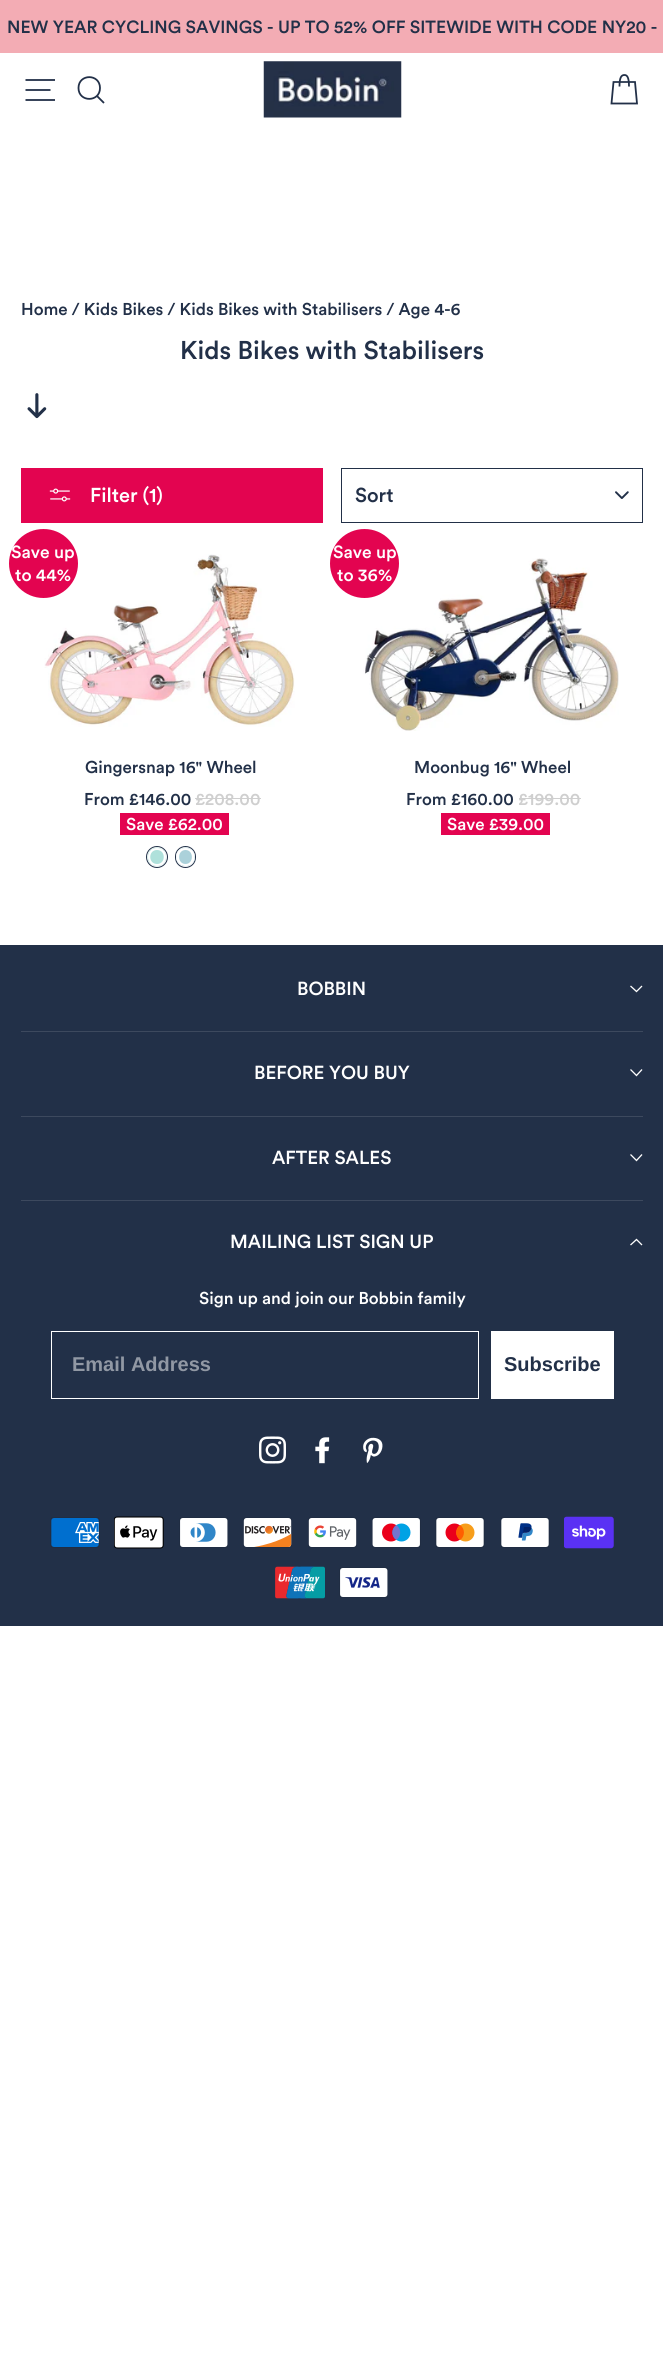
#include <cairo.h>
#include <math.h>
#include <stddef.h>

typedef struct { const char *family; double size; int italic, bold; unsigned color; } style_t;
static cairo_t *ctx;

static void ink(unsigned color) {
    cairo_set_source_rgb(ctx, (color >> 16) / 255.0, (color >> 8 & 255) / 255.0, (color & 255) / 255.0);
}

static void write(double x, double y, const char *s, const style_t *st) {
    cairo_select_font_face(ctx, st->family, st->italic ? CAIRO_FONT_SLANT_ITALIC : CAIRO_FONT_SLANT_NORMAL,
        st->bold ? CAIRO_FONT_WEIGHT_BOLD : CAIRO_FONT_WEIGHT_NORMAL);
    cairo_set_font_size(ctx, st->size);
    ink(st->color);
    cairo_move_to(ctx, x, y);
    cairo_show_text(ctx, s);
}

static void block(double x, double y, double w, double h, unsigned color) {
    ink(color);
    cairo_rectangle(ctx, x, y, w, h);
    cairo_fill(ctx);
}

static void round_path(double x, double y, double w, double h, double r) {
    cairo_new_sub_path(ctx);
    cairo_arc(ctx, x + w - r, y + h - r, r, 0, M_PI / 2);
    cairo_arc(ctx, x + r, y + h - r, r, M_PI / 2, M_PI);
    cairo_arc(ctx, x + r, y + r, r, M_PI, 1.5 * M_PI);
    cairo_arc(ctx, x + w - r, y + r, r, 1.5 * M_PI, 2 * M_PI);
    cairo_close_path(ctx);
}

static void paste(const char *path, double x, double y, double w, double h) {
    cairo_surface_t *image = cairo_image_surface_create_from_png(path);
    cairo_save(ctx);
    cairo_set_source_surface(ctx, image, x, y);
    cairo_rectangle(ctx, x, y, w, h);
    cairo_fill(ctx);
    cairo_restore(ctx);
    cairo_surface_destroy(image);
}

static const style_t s1 = {"Circular Medium", 17.5, 0, 0, 0x223048};
static const style_t s2 = {"Circular Medium", 17, 0, 0, 0x223048};
static const style_t s3 = {"Circular Medium", 25.5, 0, 0, 0x223048};
static const style_t s4 = {"Circular Medium", 20, 0, 0, 0xffffff};
static const style_t s5 = {"Circular Medium", 20, 0, 0, 0x223048};
static const style_t s6 = {"Circular Medium", 17.5, 0, 0, 0xffffff};
static const style_t s7 = {"Circular Medium", 17, 0, 0, 0xcfcfcf};
static const style_t s8 = {"Circular Medium", 17, 0, 0, 0xffffff};
static const style_t s9 = {"Circular Medium", 18.75, 0, 0, 0xffffff};
static const style_t s10 = {"Liberation Sans", 20, 0, 1, 0x9198a4};
static const style_t s11 = {"Liberation Sans", 20, 0, 1, 0x223048};

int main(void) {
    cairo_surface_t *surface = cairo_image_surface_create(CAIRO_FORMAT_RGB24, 663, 2368);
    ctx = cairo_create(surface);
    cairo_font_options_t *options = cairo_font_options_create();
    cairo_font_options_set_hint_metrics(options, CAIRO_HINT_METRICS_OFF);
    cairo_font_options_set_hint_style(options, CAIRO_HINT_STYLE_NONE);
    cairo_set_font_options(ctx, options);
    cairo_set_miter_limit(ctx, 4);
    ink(0xffffff);
    cairo_paint(ctx);
    block(0, 0, 663, 53, 0xf3acb4);
    write(7, 33, "NEW YEAR CYCLING SAVINGS - UP TO 52% OFF SITEWIDE WITH CODE NY20 -", &s1);
    cairo_new_path(ctx);
    cairo_move_to(ctx, 25.5, 80);
    cairo_line_to(ctx, 55, 80);
    cairo_move_to(ctx, 25.5, 90);
    cairo_line_to(ctx, 50.5, 90);
    cairo_move_to(ctx, 25.5, 100);
    cairo_line_to(ctx, 55, 100);
    cairo_set_line_width(ctx, 1.8);
    cairo_stroke(ctx);
    cairo_new_path(ctx);
    cairo_move_to(ctx, 100, 88);
    cairo_curve_to(ctx, 100, 102.5, 78.5, 102.5, 78.5, 88);
    cairo_curve_to(ctx, 78.5, 73.5, 100, 73.5, 100, 88);
    cairo_close_path(ctx);
    cairo_move_to(ctx, 104, 103);
    cairo_line_to(ctx, 97, 96);
    cairo_stroke(ctx);
    paste("pic1.png", 263, 61, 139, 57);
    cairo_new_path(ctx);
    cairo_move_to(ctx, 619.5, 86.5);
    cairo_curve_to(ctx, 619.5, 77, 621.5, 75, 624.5, 75);
    cairo_curve_to(ctx, 627, 75, 629, 77, 629, 86.5);
    cairo_move_to(ctx, 613.5, 82);
    cairo_line_to(ctx, 635, 82);
    cairo_line_to(ctx, 637, 103.5);
    cairo_line_to(ctx, 611.5, 103.5);
    cairo_close_path(ctx);
    cairo_stroke(ctx);
    write(21, 315, "Home / Kids Bikes / Kids Bikes with Stabilisers / Age 4-6", &s2);
    write(180, 359, "Kids Bikes with Stabilisers", &s3);
    paste("pic2.png", 27, 393, 20, 26);
    block(21, 468, 302, 55, 0xe30450);
    paste("pic3.png", 49, 488, 22, 14);
    write(90, 502, "Filter (1)", &s4);
    paste("pic4.png", 615, 491, 14, 8);
    cairo_rectangle(ctx, 341.5, 468.5, 301, 54);
    ink(0x223048);
    cairo_set_line_width(ctx, 1);
    cairo_stroke(ctx);
    write(355, 502, "Sort", &s5);
    paste("pic5.png", 44, 554, 251, 173);
    ink(0xe30450);
    cairo_arc(ctx, 43.5, 563.5, 34.5, 0, 2 * M_PI);
    cairo_fill(ctx);
    write(11, 558, "Save up", &s6);
    write(15, 581, "to 44%", &s6);
    write(84, 805, "From £146.00", &s2);
    write(195, 805, "£208.00", &s7);
    block(195, 798, 66, 1, 0xcfcfcf);
    block(120, 813, 109, 22, 0xe30450);
    write(126, 830, "Save £62.00", &s8);
    write(85, 773, "Gingersnap 16\" Wheel", &s2);
    cairo_new_path(ctx);
    cairo_arc(ctx, 157, 857, 10.5, 0, 2 * M_PI);
    cairo_stroke(ctx);
    paste("pic6.png", 147, 847, 20, 20);
    round_path(175.5, 846.5, 20, 21, 10);
    cairo_stroke(ctx);
    paste("pic7.png", 176, 847, 19, 20);
    ink(0xffffff);
    cairo_set_fill_rule(ctx, CAIRO_FILL_RULE_EVEN_ODD);
    cairo_new_path(ctx);
    cairo_move_to(ctx, 157, 848);
    cairo_curve_to(ctx, 145, 848, 145, 866, 157, 866);
    cairo_curve_to(ctx, 169, 866, 169, 848, 157, 848);
    cairo_close_path(ctx);
    cairo_move_to(ctx, 157, 850);
    cairo_curve_to(ctx, 148, 850, 148, 864, 157, 864);
    cairo_curve_to(ctx, 166, 864, 166, 850, 157, 850);
    cairo_close_path(ctx);
    cairo_move_to(ctx, 185, 848);
    cairo_curve_to(ctx, 173.5, 848, 173, 865, 185, 866);
    cairo_curve_to(ctx, 197.5, 867, 198, 848, 186, 848);
    cairo_close_path(ctx);
    cairo_move_to(ctx, 185.5, 850);
    cairo_curve_to(ctx, 177, 850, 177, 864, 185.5, 864);
    cairo_curve_to(ctx, 194, 864, 194, 850, 185.5, 850);
    cairo_close_path(ctx);
    cairo_fill(ctx);
    paste("pic8.png", 363, 558, 256, 173);
    ink(0xe30450);
    cairo_arc(ctx, 364.5, 563.5, 34.5, 0, 2 * M_PI);
    cairo_fill(ctx);
    write(333, 558, "Save up", &s6);
    write(337, 581, "to 36%", &s6);
    write(406, 805, "From £160.00", &s2);
    write(518, 805, "£199.00", &s7);
    block(519, 798, 62, 1, 0xcfcfcf);
    block(441, 813, 109, 22, 0xe30450);
    write(447, 830, "Save £39.00", &s8);
    write(414, 773, "Moonbug 16\" Wheel", &s2);
    block(0, 945, 663, 681, 0x223048);
    write(297, 995, "BOBBIN", &s9);
    cairo_new_path(ctx);
    cairo_move_to(ctx, 630.5, 986);
    cairo_line_to(ctx, 636.5, 991.5);
    cairo_line_to(ctx, 642, 986);
    cairo_set_line_width(ctx, 1.3);
    cairo_stroke(ctx);
    block(21, 1031, 622, 1, 0x3d495e);
    write(254, 1079, "BEFORE YOU BUY", &s9);
    cairo_new_path(ctx);
    cairo_move_to(ctx, 630.5, 1069.5);
    cairo_line_to(ctx, 636.5, 1075.5);
    cairo_line_to(ctx, 642, 1069.5);
    cairo_stroke(ctx);
    block(21, 1116, 622, 1, 0x3d495e);
    write(272, 1164, "AFTER SALES", &s9);
    cairo_new_path(ctx);
    cairo_move_to(ctx, 630.5, 1154.5);
    cairo_line_to(ctx, 636.5, 1160.5);
    cairo_line_to(ctx, 642, 1154.5);
    cairo_stroke(ctx);
    block(21, 1200, 622, 1, 0x3d495e);
    write(230, 1248, "MAILING LIST SIGN UP", &s9);
    cairo_new_path(ctx);
    cairo_move_to(ctx, 630.5, 1245);
    cairo_line_to(ctx, 636.5, 1239.5);
    cairo_line_to(ctx, 642, 1245);
    cairo_stroke(ctx);
    write(199, 1304, "Sign up and join our Bobbin family", &s8);
    cairo_rectangle(ctx, 51.5, 1331.5, 427, 67);
    cairo_set_line_width(ctx, 1);
    cairo_stroke(ctx);
    write(72, 1371, "Email Address", &s10);
    block(491, 1331, 123, 68, 0xffffff);
    write(504, 1371, "Subscribe", &s11);
    paste("pic9.png", 259, 1436, 27, 28);
    paste("pic10.png", 315, 1437, 15, 27);
    paste("pic11.png", 363, 1437, 20, 27);
    paste("pic12.png", 50, 1517, 50, 31);
    paste("pic13.png", 114, 1516, 50, 33);
    paste("pic14.png", 179, 1517, 49, 31);
    paste("pic15.png", 243, 1517, 49, 31);
    paste("pic16.png", 308, 1517, 49, 31);
    paste("pic17.png", 372, 1517, 49, 31);
    paste("pic18.png", 435, 1517, 50, 31);
    paste("pic19.png", 500, 1517, 50, 31);
    paste("pic20.png", 564, 1516, 50, 33);
    paste("pic21.png", 275, 1566, 50, 33);
    paste("pic22.png", 339, 1567, 49, 31);
    cairo_surface_write_to_png(surface, "screenshot.png");
    cairo_font_options_destroy(options);
    cairo_destroy(ctx);
    cairo_surface_destroy(surface);
    return 0;
}
